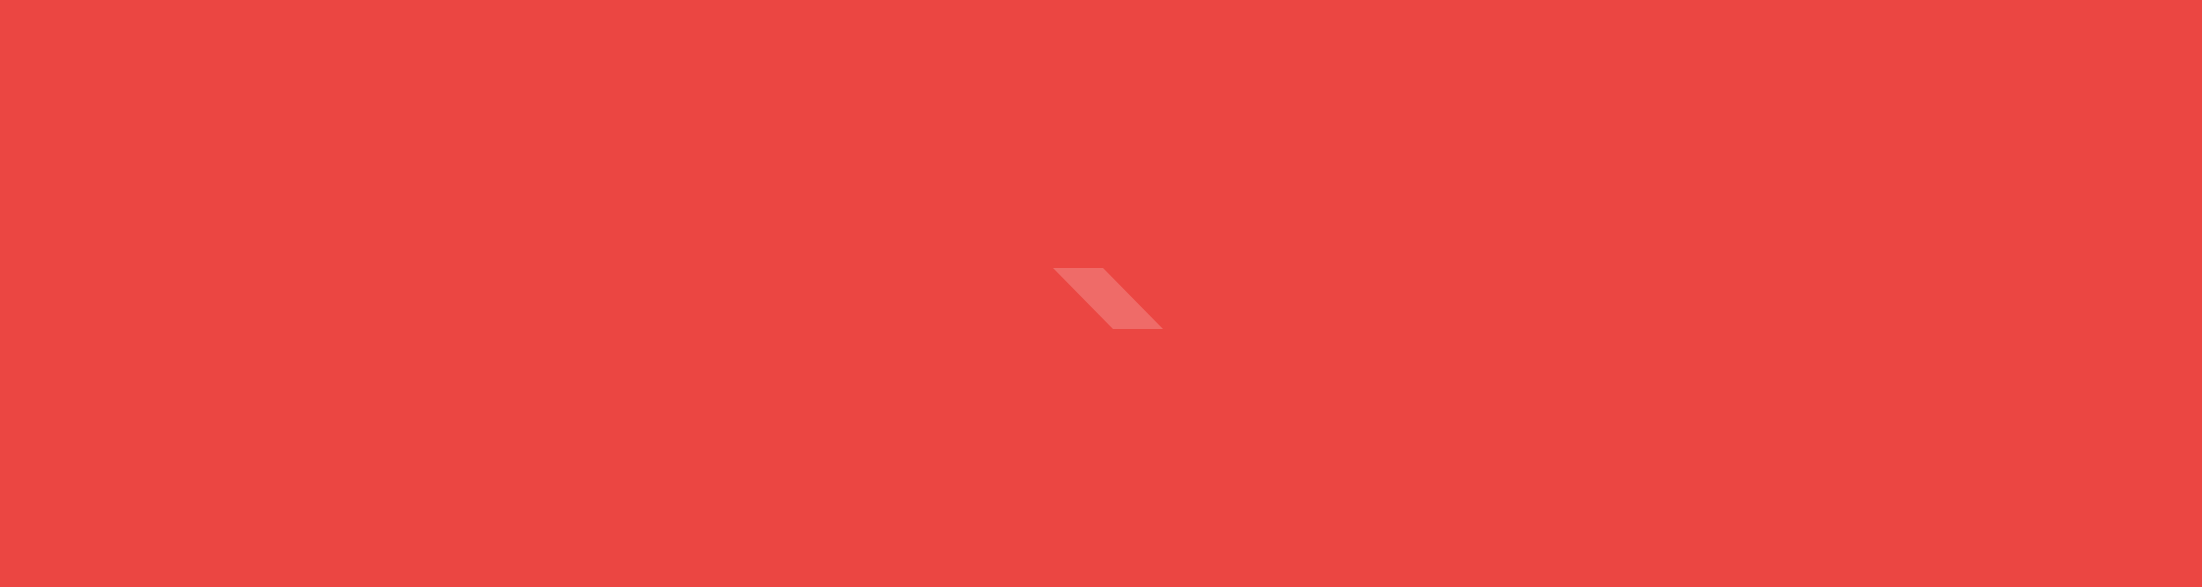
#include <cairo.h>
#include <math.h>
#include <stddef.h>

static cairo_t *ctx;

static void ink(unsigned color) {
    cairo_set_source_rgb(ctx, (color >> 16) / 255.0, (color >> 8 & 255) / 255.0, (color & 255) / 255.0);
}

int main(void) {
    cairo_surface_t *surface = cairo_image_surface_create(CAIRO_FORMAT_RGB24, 2202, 587);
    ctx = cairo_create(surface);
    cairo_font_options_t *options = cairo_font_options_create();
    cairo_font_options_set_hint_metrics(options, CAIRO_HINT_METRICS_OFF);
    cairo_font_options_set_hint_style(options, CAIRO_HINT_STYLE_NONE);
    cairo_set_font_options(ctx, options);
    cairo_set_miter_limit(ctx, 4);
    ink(0xffffff);
    cairo_paint(ctx);
    ink(0xeb4642);
    cairo_new_path(ctx);
    cairo_move_to(ctx, -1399, 0);
    cairo_line_to(ctx, 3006, 0);
    cairo_line_to(ctx, 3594, 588);
    cairo_line_to(ctx, -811, 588);
    cairo_close_path(ctx);
    cairo_fill(ctx);
    ink(0xef6b68);
    cairo_new_path(ctx);
    cairo_move_to(ctx, 1053, 268);
    cairo_line_to(ctx, 1103, 268);
    cairo_line_to(ctx, 1163, 329);
    cairo_line_to(ctx, 1113, 329);
    cairo_close_path(ctx);
    cairo_fill(ctx);
    cairo_surface_write_to_png(surface, "screenshot.png");
    cairo_font_options_destroy(options);
    cairo_destroy(ctx);
    cairo_surface_destroy(surface);
    return 0;
}
